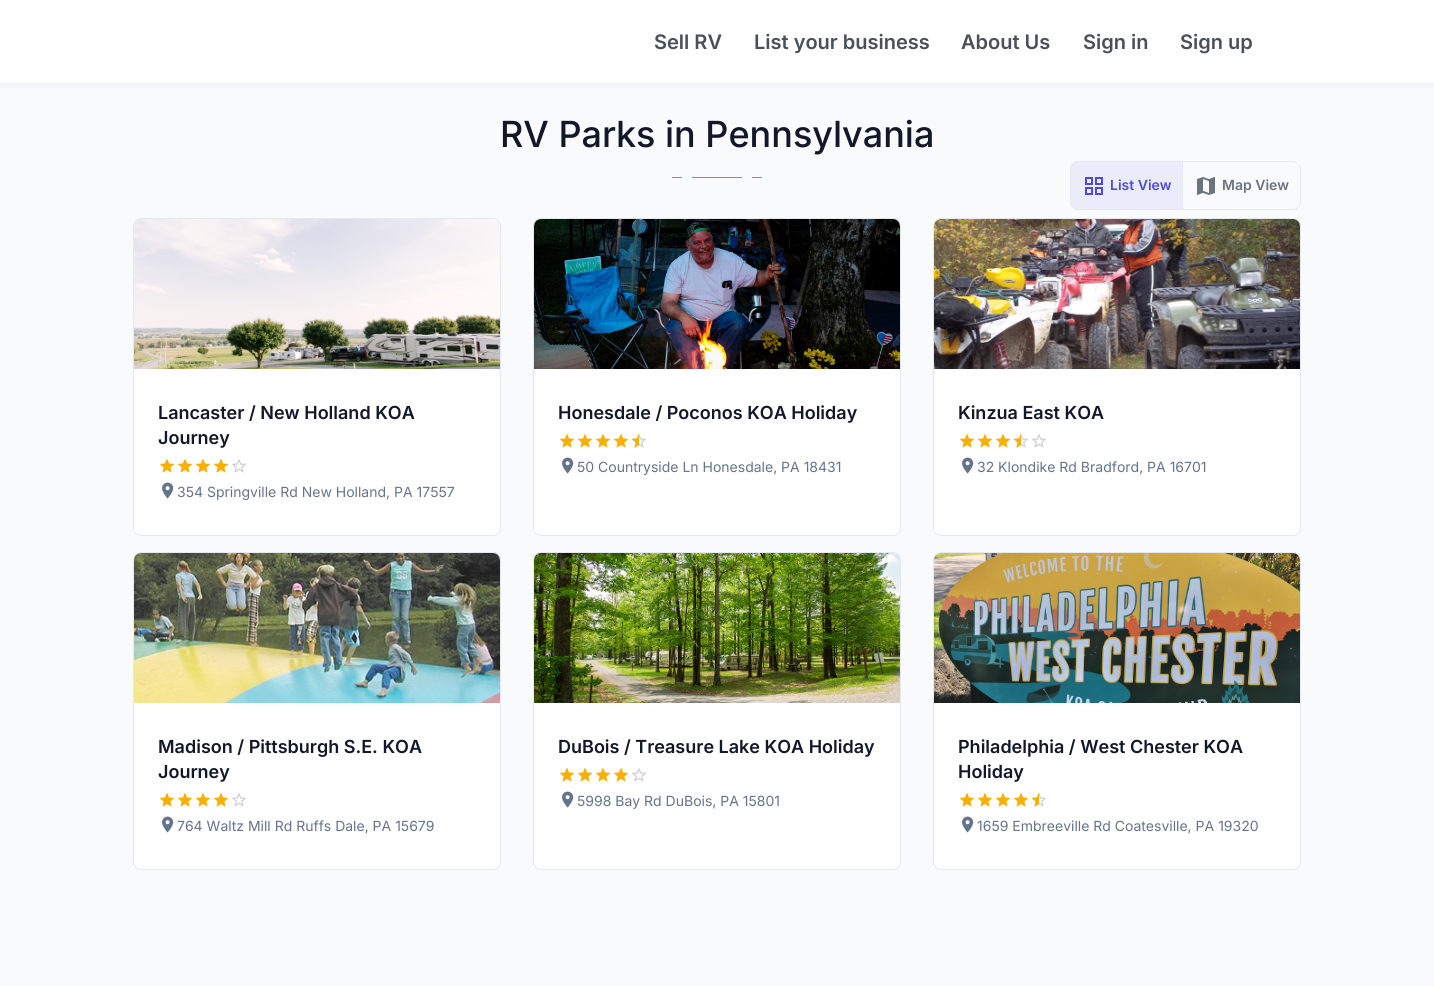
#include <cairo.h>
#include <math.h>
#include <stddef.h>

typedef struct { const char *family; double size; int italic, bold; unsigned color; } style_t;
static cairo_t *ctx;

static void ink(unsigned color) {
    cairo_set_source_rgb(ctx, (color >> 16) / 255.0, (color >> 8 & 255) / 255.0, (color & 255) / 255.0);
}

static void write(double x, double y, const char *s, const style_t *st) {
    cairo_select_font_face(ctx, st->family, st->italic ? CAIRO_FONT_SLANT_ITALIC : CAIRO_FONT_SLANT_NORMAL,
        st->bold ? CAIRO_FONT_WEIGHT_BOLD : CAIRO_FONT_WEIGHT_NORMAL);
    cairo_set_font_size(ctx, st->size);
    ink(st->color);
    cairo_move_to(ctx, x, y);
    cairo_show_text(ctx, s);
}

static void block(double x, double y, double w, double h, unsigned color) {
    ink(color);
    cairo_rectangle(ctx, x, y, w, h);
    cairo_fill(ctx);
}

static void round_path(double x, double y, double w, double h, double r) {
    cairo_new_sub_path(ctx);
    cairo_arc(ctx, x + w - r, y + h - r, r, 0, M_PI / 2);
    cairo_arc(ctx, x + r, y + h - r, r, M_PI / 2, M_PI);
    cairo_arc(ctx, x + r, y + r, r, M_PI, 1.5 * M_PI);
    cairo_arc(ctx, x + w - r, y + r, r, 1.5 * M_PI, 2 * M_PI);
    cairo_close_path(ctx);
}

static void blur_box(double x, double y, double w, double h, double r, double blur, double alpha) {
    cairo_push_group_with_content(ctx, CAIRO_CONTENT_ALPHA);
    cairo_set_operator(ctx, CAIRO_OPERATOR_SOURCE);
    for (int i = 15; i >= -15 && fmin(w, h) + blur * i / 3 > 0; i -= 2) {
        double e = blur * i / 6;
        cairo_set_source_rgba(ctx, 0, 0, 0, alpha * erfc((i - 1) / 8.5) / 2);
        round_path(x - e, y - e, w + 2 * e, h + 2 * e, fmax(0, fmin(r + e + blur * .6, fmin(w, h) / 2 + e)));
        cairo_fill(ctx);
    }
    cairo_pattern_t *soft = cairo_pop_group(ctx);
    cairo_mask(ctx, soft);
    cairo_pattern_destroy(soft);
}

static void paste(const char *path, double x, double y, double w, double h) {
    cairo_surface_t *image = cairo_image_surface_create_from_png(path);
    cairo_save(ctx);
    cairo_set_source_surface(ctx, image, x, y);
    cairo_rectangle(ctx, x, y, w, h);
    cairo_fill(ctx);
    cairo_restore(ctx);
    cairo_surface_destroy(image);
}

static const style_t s1 = {"Inter SemiBold", 20, 0, 0, 0x495057};
static const style_t s2 = {"Inter Medium", 36, 0, 0, 0x121828};
static const style_t s3 = {"Inter SemiBold", 14, 0, 0, 0x5048e5};
static const style_t s4 = {"Inter SemiBold", 14, 0, 0, 0x6b7280};
static const style_t s5 = {"Inter SemiBold", 18, 0, 0, 0x121828};
static const style_t s6 = {"Inter", 14, 0, 0, 0x65748b};

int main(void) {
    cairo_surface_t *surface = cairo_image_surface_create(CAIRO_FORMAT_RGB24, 1434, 986);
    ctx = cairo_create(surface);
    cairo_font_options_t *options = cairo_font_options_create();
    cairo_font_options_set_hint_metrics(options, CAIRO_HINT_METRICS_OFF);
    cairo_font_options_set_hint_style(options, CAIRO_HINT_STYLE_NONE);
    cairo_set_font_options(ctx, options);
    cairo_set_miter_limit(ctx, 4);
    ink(0xf9fafc);
    cairo_paint(ctx);
    ink(0x64748b);
    blur_box(0, 1, 1434, 83, 0, 2.5, 0.12);
    block(0, 0, 1434, 83, 0xffffff);
    write(654, 49, "Sell RV", &s1);
    write(754, 49, "List your business", &s1);
    write(961, 49, "About Us", &s1);
    write(1083, 49, "Sign in", &s1);
    write(1180, 49, "Sign up", &s1);
    write(500, 147, "RV Parks in Pennsylvania", &s2);
    block(692, 177, 50, 1, 0x1cb6e2);
    block(672, 177, 10, 1, 0x1cb6e2);
    block(752, 177, 10, 1, 0x1cb6e2);
    ink(0xebecfa);
    cairo_new_path(ctx);
    cairo_move_to(ctx, 1078, 161.5);
    cairo_line_to(ctx, 1182.5, 161.5);
    cairo_line_to(ctx, 1182.5, 209.5);
    cairo_line_to(ctx, 1078, 209.5);
    cairo_curve_to(ctx, 1074, 209.5, 1070.5, 206, 1070.5, 202);
    cairo_line_to(ctx, 1070.5, 169);
    cairo_curve_to(ctx, 1070.5, 165, 1074, 161.5, 1078, 161.5);
    cairo_close_path(ctx);
    cairo_fill_preserve(ctx);
    ink(0xe6e8f0);
    cairo_set_line_width(ctx, 1);
    cairo_stroke(ctx);
    paste("pic1.png", 1085, 177, 18, 18);
    write(1110, 190, "List View", &s3);
    ink(0xe6e8f0);
    cairo_new_path(ctx);
    cairo_move_to(ctx, 1182, 161);
    cairo_line_to(ctx, 1183, 162);
    cairo_line_to(ctx, 1294, 162);
    cairo_line_to(ctx, 1298, 164);
    cairo_curve_to(ctx, 1297, 162, 1295, 161, 1293, 161);
    cairo_close_path(ctx);
    cairo_fill(ctx);
    cairo_new_path(ctx);
    cairo_move_to(ctx, 1301, 202);
    cairo_line_to(ctx, 1301, 169);
    cairo_curve_to(ctx, 1301, 167, 1300, 165, 1298, 164);
    cairo_curve_to(ctx, 1299, 165, 1300, 167, 1300, 169);
    cairo_line_to(ctx, 1300, 202);
    cairo_curve_to(ctx, 1300, 204, 1299, 206, 1298, 207);
    cairo_line_to(ctx, 1298, 208);
    cairo_curve_to(ctx, 1300, 206, 1301, 204, 1301, 202);
    cairo_close_path(ctx);
    cairo_fill(ctx);
    cairo_new_path(ctx);
    cairo_move_to(ctx, 1293, 210);
    cairo_curve_to(ctx, 1295, 210, 1297, 209, 1298, 208);
    cairo_line_to(ctx, 1298, 207);
    cairo_line_to(ctx, 1294, 209);
    cairo_line_to(ctx, 1183, 209);
    cairo_line_to(ctx, 1182, 210);
    cairo_close_path(ctx);
    cairo_fill(ctx);
    paste("pic2.png", 1197, 177, 18, 18);
    write(1222, 190, "Map View", &s4);
    ink(0xffffff);
    round_path(133.5, 218.5, 367, 317, 7.5);
    cairo_fill_preserve(ctx);
    ink(0xe6e8f0);
    cairo_stroke(ctx);
    paste("pic3.png", 134, 219, 366, 150);
    write(158, 419, "Lancaster / New Holland KOA", &s5);
    write(158, 444, "Journey", &s5);
    paste("pic4.png", 159, 458, 16, 15);
    paste("pic4.png", 177, 458, 16, 15);
    paste("pic4.png", 195, 458, 16, 15);
    paste("pic4.png", 213, 458, 16, 15);
    paste("pic5.png", 232, 459, 14, 14);
    paste("pic6.png", 162, 482, 12, 17);
    write(177, 497, "354 Springville Rd New Holland, PA 17557", &s6);
    ink(0xffffff);
    round_path(533.5, 218.5, 367, 317, 7.5);
    cairo_fill_preserve(ctx);
    ink(0xe6e8f0);
    cairo_stroke(ctx);
    paste("pic7.png", 534, 219, 366, 150);
    write(558, 419, "Honesdale / Poconos KOA Holiday", &s5);
    paste("pic4.png", 559, 433, 16, 15);
    paste("pic4.png", 577, 433, 16, 15);
    paste("pic4.png", 595, 433, 16, 15);
    paste("pic4.png", 613, 433, 16, 15);
    paste("pic5.png", 632, 434, 14, 14);
    paste("pic8.png", 631, 433, 8, 15);
    paste("pic6.png", 562, 457, 12, 17);
    write(577, 472, "50 Countryside Ln Honesdale, PA 18431", &s6);
    ink(0xffffff);
    round_path(933.5, 218.5, 367, 317, 7.5);
    cairo_fill_preserve(ctx);
    ink(0xe6e8f0);
    cairo_stroke(ctx);
    paste("pic9.png", 934, 219, 366, 150);
    write(958, 419, "Kinzua East KOA", &s5);
    paste("pic4.png", 959, 433, 16, 15);
    paste("pic4.png", 977, 433, 16, 15);
    paste("pic4.png", 995, 433, 16, 15);
    paste("pic5.png", 1014, 434, 14, 14);
    paste("pic8.png", 1013, 433, 8, 15);
    paste("pic5.png", 1032, 434, 14, 14);
    paste("pic6.png", 962, 457, 12, 17);
    write(977, 472, "32 Klondike Rd Bradford, PA 16701", &s6);
    ink(0xffffff);
    round_path(133.5, 552.5, 367, 317, 7.5);
    cairo_fill_preserve(ctx);
    ink(0xe6e8f0);
    cairo_stroke(ctx);
    paste("pic10.png", 134, 553, 366, 150);
    write(158, 753, "Madison / Pittsburgh S.E. KOA", &s5);
    write(158, 778, "Journey", &s5);
    paste("pic4.png", 159, 792, 16, 15);
    paste("pic4.png", 177, 792, 16, 15);
    paste("pic4.png", 195, 792, 16, 15);
    paste("pic4.png", 213, 792, 16, 15);
    paste("pic5.png", 232, 793, 14, 14);
    paste("pic6.png", 162, 816, 12, 17);
    write(177, 831, "764 Waltz Mill Rd Ruffs Dale, PA 15679", &s6);
    ink(0xffffff);
    round_path(533.5, 552.5, 367, 317, 7.5);
    cairo_fill_preserve(ctx);
    ink(0xe6e8f0);
    cairo_stroke(ctx);
    paste("pic11.png", 534, 553, 366, 150);
    write(558, 753, "DuBois / Treasure Lake KOA Holiday", &s5);
    paste("pic4.png", 559, 767, 16, 15);
    paste("pic4.png", 577, 767, 16, 15);
    paste("pic4.png", 595, 767, 16, 15);
    paste("pic4.png", 613, 767, 16, 15);
    paste("pic5.png", 632, 768, 14, 14);
    paste("pic6.png", 562, 791, 12, 17);
    write(577, 806, "5998 Bay Rd DuBois, PA 15801", &s6);
    ink(0xffffff);
    round_path(933.5, 552.5, 367, 317, 7.5);
    cairo_fill_preserve(ctx);
    ink(0xe6e8f0);
    cairo_stroke(ctx);
    paste("pic12.png", 934, 553, 366, 150);
    write(958, 753, "Philadelphia / West Chester KOA", &s5);
    write(958, 778, "Holiday", &s5);
    paste("pic4.png", 959, 792, 16, 15);
    paste("pic4.png", 977, 792, 16, 15);
    paste("pic4.png", 995, 792, 16, 15);
    paste("pic4.png", 1013, 792, 16, 15);
    paste("pic5.png", 1032, 793, 14, 14);
    paste("pic8.png", 1031, 792, 8, 15);
    paste("pic6.png", 962, 816, 12, 17);
    write(977, 831, "1659 Embreeville Rd Coatesville, PA 19320", &s6);
    cairo_surface_write_to_png(surface, "screenshot.png");
    cairo_font_options_destroy(options);
    cairo_destroy(ctx);
    cairo_surface_destroy(surface);
    return 0;
}
